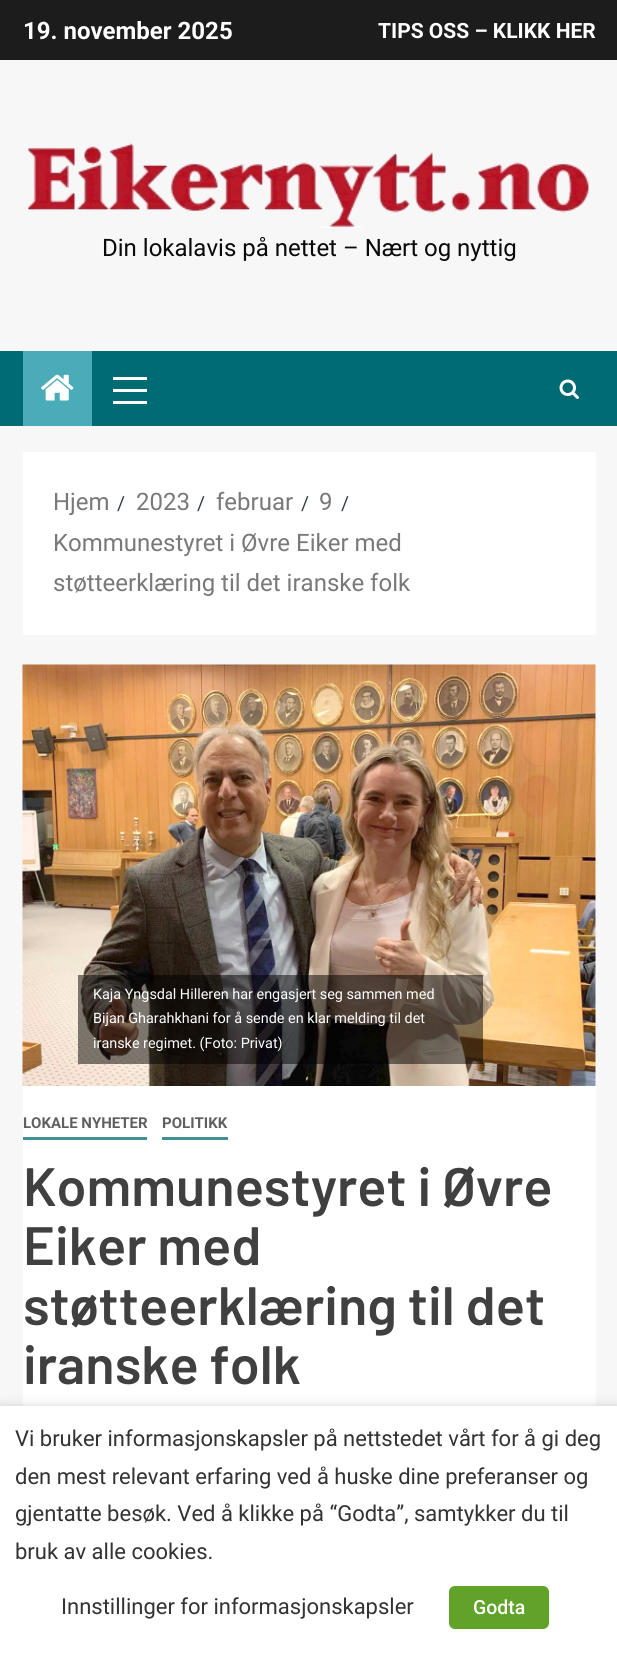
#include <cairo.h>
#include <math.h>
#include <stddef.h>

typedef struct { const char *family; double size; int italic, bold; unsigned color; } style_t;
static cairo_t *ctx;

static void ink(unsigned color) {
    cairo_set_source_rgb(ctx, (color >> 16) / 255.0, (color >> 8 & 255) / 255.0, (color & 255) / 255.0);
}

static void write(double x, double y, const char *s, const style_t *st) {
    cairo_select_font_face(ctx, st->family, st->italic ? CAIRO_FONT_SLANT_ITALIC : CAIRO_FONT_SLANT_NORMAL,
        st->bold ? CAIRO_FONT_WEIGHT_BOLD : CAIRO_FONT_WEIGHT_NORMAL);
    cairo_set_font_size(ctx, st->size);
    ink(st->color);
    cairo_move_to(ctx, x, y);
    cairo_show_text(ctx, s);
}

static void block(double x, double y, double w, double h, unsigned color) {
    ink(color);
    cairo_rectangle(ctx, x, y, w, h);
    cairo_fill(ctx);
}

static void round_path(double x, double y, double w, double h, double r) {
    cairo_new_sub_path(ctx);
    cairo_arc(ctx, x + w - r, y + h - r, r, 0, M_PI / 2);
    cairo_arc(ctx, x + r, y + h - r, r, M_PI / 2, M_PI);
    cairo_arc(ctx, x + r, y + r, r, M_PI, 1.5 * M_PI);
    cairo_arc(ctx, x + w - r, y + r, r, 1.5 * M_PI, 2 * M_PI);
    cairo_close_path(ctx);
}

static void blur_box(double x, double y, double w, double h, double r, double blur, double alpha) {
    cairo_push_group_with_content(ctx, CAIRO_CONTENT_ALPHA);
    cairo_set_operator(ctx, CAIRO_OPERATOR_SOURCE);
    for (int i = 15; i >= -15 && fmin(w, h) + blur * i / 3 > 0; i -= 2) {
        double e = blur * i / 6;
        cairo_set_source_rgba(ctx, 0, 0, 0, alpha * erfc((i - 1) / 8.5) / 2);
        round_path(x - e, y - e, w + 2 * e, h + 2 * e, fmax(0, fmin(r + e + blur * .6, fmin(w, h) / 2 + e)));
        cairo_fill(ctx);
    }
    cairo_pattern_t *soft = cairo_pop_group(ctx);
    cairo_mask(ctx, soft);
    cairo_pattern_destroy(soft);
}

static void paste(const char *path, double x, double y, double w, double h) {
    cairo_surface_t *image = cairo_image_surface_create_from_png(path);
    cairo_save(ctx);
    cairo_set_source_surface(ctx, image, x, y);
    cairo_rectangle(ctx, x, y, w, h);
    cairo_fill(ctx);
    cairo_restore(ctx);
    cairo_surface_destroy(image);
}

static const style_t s1 = {"Roboto", 24, 0, 1, 0xffffff};
static const style_t s2 = {"Roboto", 21, 0, 1, 0xffffff};
static const style_t s3 = {"Roboto", 24, 0, 0, 0x0a0a0a};
static const style_t s4 = {"Roboto", 24, 0, 0, 0x797979};
static const style_t s5 = {"Roboto", 19.5, 0, 0, 0x393e46};
static const style_t s6 = {"Roboto", 14.4, 0, 0, 0xffffff};
static const style_t s7 = {"Roboto", 15, 0, 1, 0x606060};
static const style_t s8 = {"Barlow SemiBold", 54, 0, 0, 0x404040};
static const style_t s9 = {"Roboto", 22, 0, 0, 0x333333};
static const style_t s10 = {"Roboto Medium", 19.5, 0, 0, 0xffffff};

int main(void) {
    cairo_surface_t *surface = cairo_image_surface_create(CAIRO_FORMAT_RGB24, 617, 1659);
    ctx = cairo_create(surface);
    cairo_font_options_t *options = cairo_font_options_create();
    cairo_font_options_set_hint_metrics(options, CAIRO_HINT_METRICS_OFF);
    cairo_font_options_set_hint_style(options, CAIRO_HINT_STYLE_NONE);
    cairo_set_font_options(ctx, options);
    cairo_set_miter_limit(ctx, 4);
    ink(0xf7f7f7);
    cairo_paint(ctx);
    block(0, 0, 617, 60, 0x1c1c1c);
    write(23, 39, "19. november 2025", &s1);
    write(378, 38, "TIPS OSS – KLIKK HER", &s2);
    paste("pic1.png", 28, 143, 561, 85);
    write(102, 256, "Din lokalavis på nettet – Nært og nyttig", &s3);
    block(0, 351, 617, 75, 0x006b73);
    block(23, 351, 69, 75, 0x4aabb9);
    paste("pic2.png", 41, 374, 33, 27);
    block(113, 389, 34, 3, 0xffffff);
    block(113, 377, 34, 3, 0xffffff);
    block(113, 401, 34, 3, 0xffffff);
    paste("pic3.png", 559, 379, 20, 20);
    block(23, 452, 573, 183, 0xffffff);
    write(53, 510, "Hjem", &s4);
    write(117, 510, "/", &s5);
    write(136, 510, "2023", &s4);
    write(197, 510, "/", &s5);
    write(216, 510, "februar", &s4);
    write(301, 510, "/", &s5);
    write(319, 510, "9", &s4);
    write(341, 510, "/", &s5);
    write(53, 551, "Kommunestyret i Øvre Eiker med", &s4);
    write(53, 591, "støtteerklæring til det iranske folk", &s4);
    block(23, 665, 573, 741, 0xffffff);
    paste("pic4.png", 22, 664, 574, 422);
    cairo_set_source_rgba(ctx, 0, 0, 0, 0.5);
    cairo_rectangle(ctx, 78, 975, 405, 89);
    cairo_fill(ctx);
    write(93, 999, "Kaja Yngsdal Hilleren har engasjert seg sammen med", &s6);
    write(93, 1023, "Bijan Gharahkhani for å sende en klar melding til det", &s6);
    write(93, 1048, "iranske regimet. (Foto: Privat)", &s6);
    block(23, 1137, 124, 3, 0x409096);
    write(23, 1128, "LOKALE NYHETER", &s7);
    block(162, 1137, 66, 3, 0x409096);
    write(162, 1128, "POLITIKK", &s7);
    write(23, 1206, "Kommunestyret i Øvre", &s8);
    write(23, 1265, "Eiker med", &s8);
    write(23, 1325, "støtteerklæring til det", &s8);
    write(23, 1384, "iranske folk", &s8);
    ink(0x000000);
    blur_box(0, 1413, 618, 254, 0, 7.5, 0.5);
    block(0, 1406, 617, 253, 0xffffff);
    write(15, 1446, "Vi bruker informasjonskapsler på nettstedet vårt for å gi deg", &s9);
    write(15, 1484, "den mest relevant erfaring ved å huske dine preferanser og", &s9);
    write(15, 1521, "gjentatte besøk. Ved å klikke på “Godta”, samtykker du til", &s9);
    write(15, 1559, "bruk av alle cookies.", &s9);
    write(61, 1614, "Innstillinger for informasjonskapsler", &s9);
    ink(0x61a229);
    round_path(449, 1586, 100, 43, 6);
    cairo_fill(ctx);
    write(473, 1614, "Godta", &s10);
    cairo_surface_write_to_png(surface, "screenshot.png");
    cairo_font_options_destroy(options);
    cairo_destroy(ctx);
    cairo_surface_destroy(surface);
    return 0;
}
